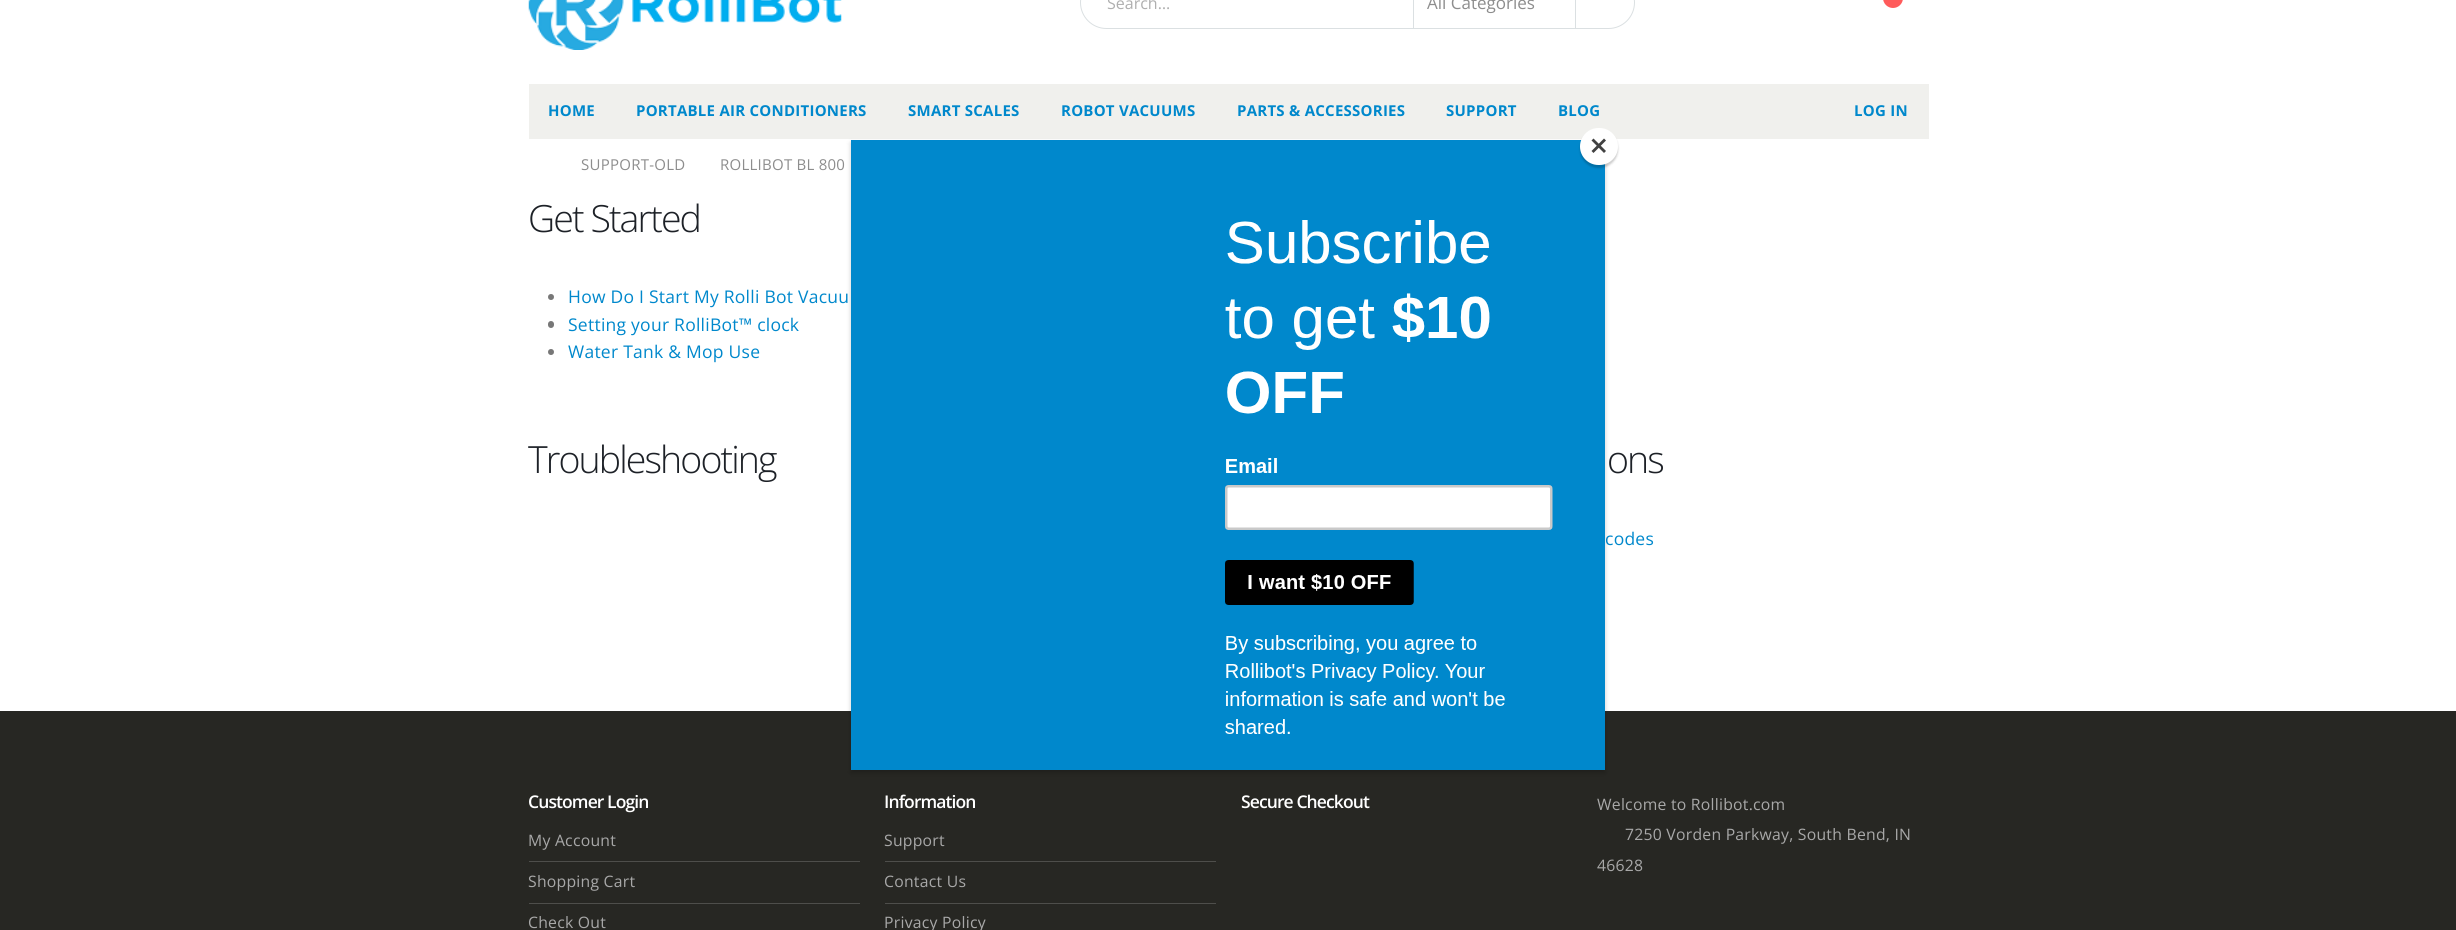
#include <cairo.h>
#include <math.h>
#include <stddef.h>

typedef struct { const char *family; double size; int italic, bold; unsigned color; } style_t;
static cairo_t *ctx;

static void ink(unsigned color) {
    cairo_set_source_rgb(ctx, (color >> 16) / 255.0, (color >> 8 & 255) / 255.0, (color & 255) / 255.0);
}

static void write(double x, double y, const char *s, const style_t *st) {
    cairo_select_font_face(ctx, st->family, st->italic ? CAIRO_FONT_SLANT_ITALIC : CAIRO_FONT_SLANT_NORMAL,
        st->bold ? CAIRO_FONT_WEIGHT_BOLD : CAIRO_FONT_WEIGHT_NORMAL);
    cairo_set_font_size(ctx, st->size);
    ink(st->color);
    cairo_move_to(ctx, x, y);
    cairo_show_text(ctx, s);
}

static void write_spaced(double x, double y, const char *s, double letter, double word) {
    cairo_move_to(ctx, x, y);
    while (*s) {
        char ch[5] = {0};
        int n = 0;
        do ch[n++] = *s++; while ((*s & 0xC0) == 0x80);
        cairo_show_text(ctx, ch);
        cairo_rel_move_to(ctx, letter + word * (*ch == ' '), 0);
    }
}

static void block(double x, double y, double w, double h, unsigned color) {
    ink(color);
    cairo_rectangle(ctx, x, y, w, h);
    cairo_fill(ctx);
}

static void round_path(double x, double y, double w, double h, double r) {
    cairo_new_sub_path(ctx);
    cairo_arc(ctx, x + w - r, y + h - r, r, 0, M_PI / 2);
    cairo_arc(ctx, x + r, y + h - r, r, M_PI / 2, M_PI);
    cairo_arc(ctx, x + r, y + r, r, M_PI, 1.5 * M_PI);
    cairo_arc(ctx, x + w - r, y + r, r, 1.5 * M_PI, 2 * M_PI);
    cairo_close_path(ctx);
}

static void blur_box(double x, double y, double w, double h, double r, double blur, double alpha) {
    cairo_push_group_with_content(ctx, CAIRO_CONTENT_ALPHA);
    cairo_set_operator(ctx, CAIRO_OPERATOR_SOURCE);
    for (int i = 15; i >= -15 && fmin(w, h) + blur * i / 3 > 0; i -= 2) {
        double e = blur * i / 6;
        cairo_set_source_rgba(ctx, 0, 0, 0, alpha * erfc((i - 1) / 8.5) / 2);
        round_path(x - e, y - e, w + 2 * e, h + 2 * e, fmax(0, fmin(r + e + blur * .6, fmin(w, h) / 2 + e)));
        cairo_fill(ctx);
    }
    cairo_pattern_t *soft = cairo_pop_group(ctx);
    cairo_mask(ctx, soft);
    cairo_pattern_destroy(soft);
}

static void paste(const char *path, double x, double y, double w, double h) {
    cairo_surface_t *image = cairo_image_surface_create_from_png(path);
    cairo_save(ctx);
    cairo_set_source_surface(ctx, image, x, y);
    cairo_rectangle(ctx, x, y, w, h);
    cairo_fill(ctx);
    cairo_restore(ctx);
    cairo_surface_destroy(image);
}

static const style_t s1 = {"Open Sans", 16, 0, 0, 0xafafaf};
static const style_t s2 = {"Open Sans", 17, 0, 0, 0x8d8d8d};

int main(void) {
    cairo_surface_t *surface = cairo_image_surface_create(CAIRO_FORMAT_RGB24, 2456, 930);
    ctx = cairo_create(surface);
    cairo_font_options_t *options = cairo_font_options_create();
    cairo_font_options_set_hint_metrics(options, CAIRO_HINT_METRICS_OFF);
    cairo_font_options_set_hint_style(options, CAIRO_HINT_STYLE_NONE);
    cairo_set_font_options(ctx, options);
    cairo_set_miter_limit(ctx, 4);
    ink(0xffffff);
    cairo_paint(ctx);
    paste("pic1.png", 528, 0, 314, 50);
    round_path(1080.5, -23.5, 554, 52, 26);
    ink(0xdbe0e2);
    cairo_set_line_width(ctx, 1);
    cairo_stroke(ctx);
    block(1413, 0, 1, 28, 0xdbe0e2);
    write(1107, 9, "Search…", &s1);
    block(1575, 0, 1, 28, 0xdbe0e2);
    write(1427, 9, "All Categories", &s2);
    ink(0xff5b5b);
    round_path(1883, -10, 20, 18, 10);
    cairo_fill(ctx);
    block(529, 84, 1400, 55, 0xf0f0ed);
    cairo_select_font_face(ctx, "Open Sans", CAIRO_FONT_SLANT_NORMAL, CAIRO_FONT_WEIGHT_BOLD);
    cairo_set_font_size(ctx, 15);
    ink(0x0088cc);
    write_spaced(548, 116, "HOME", 0.25, 0);
    write_spaced(636, 116, "PORTABLE AIR CONDITIONERS", 0.25, 0);
    write_spaced(908, 116, "SMART SCALES", 0.25, 0);
    write_spaced(1061, 116, "ROBOT VACUUMS", 0.25, 0);
    write_spaced(1237, 116, "PARTS & ACCESSORIES", 0.25, 0);
    write_spaced(1446, 116, "SUPPORT", 0.25, 0);
    write_spaced(1558, 116, "BLOG", 0.25, 0);
    write_spaced(1854, 116, "LOG IN", 0.25, 0);
    cairo_select_font_face(ctx, "Open Sans", CAIRO_FONT_SLANT_NORMAL, CAIRO_FONT_WEIGHT_NORMAL);
    ink(0x8d8d8d);
    write_spaced(581, 170, "SUPPORT-OLD", 0.25, 0);
    write_spaced(720, 170, "ROLLIBOT BL 800", 0.25, 0);
    cairo_select_font_face(ctx, "Open Sans Light", CAIRO_FONT_SLANT_NORMAL, CAIRO_FONT_WEIGHT_NORMAL);
    cairo_set_font_size(ctx, 37.5);
    ink(0x1d2127);
    write_spaced(528, 232, "Get Started", -1.9, 0);
    ink(0x777777);
    cairo_new_path(ctx);
    cairo_arc(ctx, 551, 297, 3, 0, 2 * M_PI);
    cairo_fill(ctx);
    cairo_select_font_face(ctx, "Open Sans", CAIRO_FONT_SLANT_NORMAL, CAIRO_FONT_WEIGHT_NORMAL);
    cairo_set_font_size(ctx, 17.5);
    ink(0x0088cc);
    write_spaced(568, 303, "How Do I Start My Rolli Bot Vacuu", 0.25, 0);
    ink(0x777777);
    round_path(548, 321, 6, 7, 3);
    cairo_fill(ctx);
    ink(0x0088cc);
    write_spaced(568, 331, "Setting your RolliBot™ clock", 0.25, 0);
    ink(0x777777);
    cairo_new_path(ctx);
    cairo_arc(ctx, 551, 352, 3, 0, 2 * M_PI);
    cairo_fill(ctx);
    ink(0x0088cc);
    write_spaced(568, 358, "Water Tank & Mop Use", 0.25, 0);
    cairo_select_font_face(ctx, "Open Sans Light", CAIRO_FONT_SLANT_NORMAL, CAIRO_FONT_WEIGHT_NORMAL);
    cairo_set_font_size(ctx, 37.5);
    ink(0x1d2127);
    write_spaced(528, 473, "Troubleshooting", -1.9, 0);
    write_spaced(1607, 473, "ons", -1.9, 0);
    cairo_select_font_face(ctx, "Open Sans", CAIRO_FONT_SLANT_NORMAL, CAIRO_FONT_WEIGHT_NORMAL);
    cairo_set_font_size(ctx, 17.5);
    ink(0x0088cc);
    write_spaced(1605, 545, "codes", 0.25, 0);
    block(0, 711, 2456, 219, 0x272723);
    cairo_select_font_face(ctx, "Open Sans SemiBold", CAIRO_FONT_SLANT_NORMAL, CAIRO_FONT_WEIGHT_NORMAL);
    ink(0xffffff);
    write_spaced(528, 808, "Customer Login", -0.9, 0);
    cairo_select_font_face(ctx, "Open Sans", CAIRO_FONT_SLANT_NORMAL, CAIRO_FONT_WEIGHT_NORMAL);
    cairo_set_font_size(ctx, 15.75);
    ink(0xa8a8a8);
    write_spaced(528, 846, "My Account", 0.25, 0);
    block(529, 861, 331, 1, 0x4e4e4b);
    ink(0xa8a8a8);
    write_spaced(528, 887, "Shopping Cart", 0.25, 0);
    block(529, 903, 331, 1, 0x4e4e4b);
    ink(0xa8a8a8);
    write_spaced(528, 928, "Check Out", 0.25, 0);
    cairo_select_font_face(ctx, "Open Sans SemiBold", CAIRO_FONT_SLANT_NORMAL, CAIRO_FONT_WEIGHT_NORMAL);
    cairo_set_font_size(ctx, 17.5);
    ink(0xffffff);
    write_spaced(884, 808, "Information", -0.9, 0);
    cairo_select_font_face(ctx, "Open Sans", CAIRO_FONT_SLANT_NORMAL, CAIRO_FONT_WEIGHT_NORMAL);
    cairo_set_font_size(ctx, 15.75);
    ink(0xa8a8a8);
    write_spaced(884, 846, "Support", 0.25, 0);
    block(885, 861, 331, 1, 0x4e4e4b);
    ink(0xa8a8a8);
    write_spaced(884, 887, "Contact Us", 0.25, 0);
    block(885, 903, 331, 1, 0x4e4e4b);
    ink(0xa8a8a8);
    write_spaced(884, 928, "Privacy Policy", 0.25, 0);
    cairo_select_font_face(ctx, "Open Sans SemiBold", CAIRO_FONT_SLANT_NORMAL, CAIRO_FONT_WEIGHT_NORMAL);
    cairo_set_font_size(ctx, 17.5);
    ink(0xffffff);
    write_spaced(1241, 808, "Secure Checkout", -0.9, 0);
    cairo_select_font_face(ctx, "Open Sans", CAIRO_FONT_SLANT_NORMAL, CAIRO_FONT_WEIGHT_NORMAL);
    cairo_set_font_size(ctx, 15.75);
    ink(0xa8a8a8);
    write_spaced(1597, 810, "Welcome to Rollibot.com", 0.25, 0);
    write_spaced(1625, 840, "7250 Vorden Parkway, South Bend, IN", 0.25, 0);
    write_spaced(1597, 871, "46628", 0.25, 0);
    ink(0x000000);
    blur_box(851, 143, 754, 630, 0, 2.5, 0.2);
    paste("pic2.png", 851, 140, 754, 630);
    blur_box(1580, 130, 38, 38, 19, 1, 0.2);
    ink(0xffffff);
    round_path(1580, 128, 38, 37, 18.5);
    cairo_fill(ctx);
    ink(0x414141);
    cairo_new_path(ctx);
    cairo_move_to(ctx, 1604, 138.5);
    cairo_line_to(ctx, 1606, 140.5);
    cairo_line_to(ctx, 1593.5, 153);
    cairo_line_to(ctx, 1591.5, 151);
    cairo_close_path(ctx);
    cairo_fill(ctx);
    cairo_new_path(ctx);
    cairo_move_to(ctx, 1591.5, 140.5);
    cairo_line_to(ctx, 1593.5, 138.5);
    cairo_line_to(ctx, 1606, 151);
    cairo_line_to(ctx, 1604, 153);
    cairo_close_path(ctx);
    cairo_fill(ctx);
    cairo_surface_write_to_png(surface, "screenshot.png");
    cairo_font_options_destroy(options);
    cairo_destroy(ctx);
    cairo_surface_destroy(surface);
    return 0;
}
